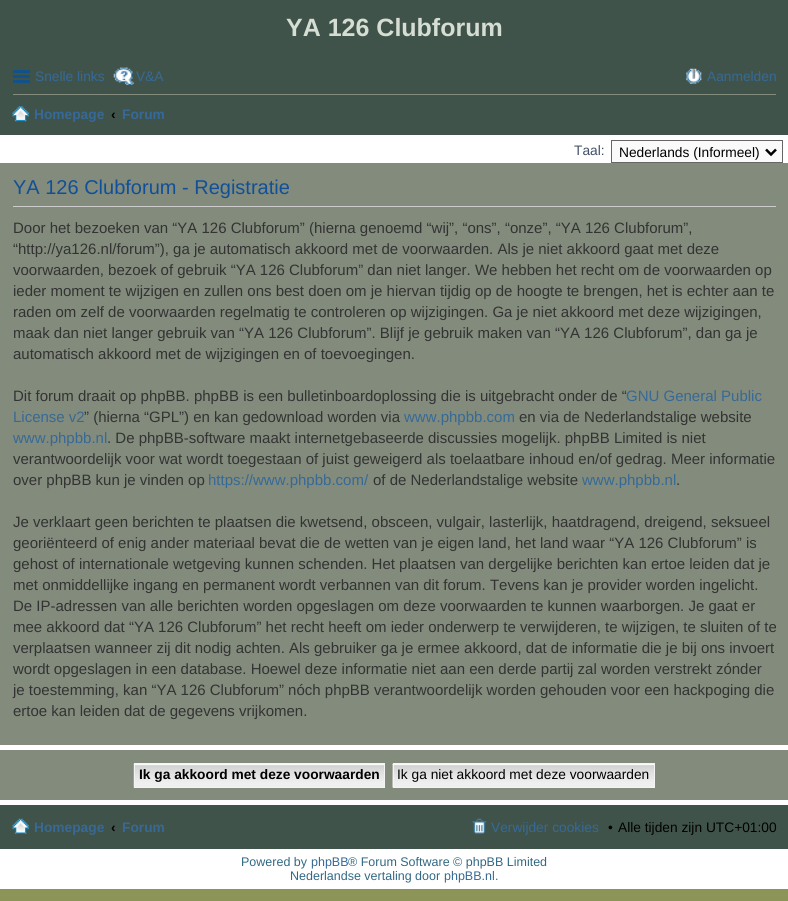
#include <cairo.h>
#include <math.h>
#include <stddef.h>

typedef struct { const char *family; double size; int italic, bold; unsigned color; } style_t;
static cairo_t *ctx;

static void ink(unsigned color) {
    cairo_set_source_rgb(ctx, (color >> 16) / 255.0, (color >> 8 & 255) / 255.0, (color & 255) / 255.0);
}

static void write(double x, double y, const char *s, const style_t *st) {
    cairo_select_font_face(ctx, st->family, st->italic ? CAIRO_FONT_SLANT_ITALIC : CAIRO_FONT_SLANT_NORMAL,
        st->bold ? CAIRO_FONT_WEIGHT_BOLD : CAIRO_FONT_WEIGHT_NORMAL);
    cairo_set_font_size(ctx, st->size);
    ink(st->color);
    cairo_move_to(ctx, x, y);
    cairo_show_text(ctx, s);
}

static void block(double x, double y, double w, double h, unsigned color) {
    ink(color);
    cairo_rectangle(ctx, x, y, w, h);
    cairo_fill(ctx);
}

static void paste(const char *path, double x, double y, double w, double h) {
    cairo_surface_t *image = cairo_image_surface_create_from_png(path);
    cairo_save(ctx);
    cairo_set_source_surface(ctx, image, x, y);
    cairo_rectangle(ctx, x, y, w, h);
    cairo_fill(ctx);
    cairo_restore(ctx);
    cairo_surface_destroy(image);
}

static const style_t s1 = {"Liberation Sans", 25, 0, 1, 0xd6ded4};
static const style_t s2 = {"Liberation Sans", 13.75, 0, 0, 0x366996};
static const style_t s3 = {"Liberation Sans", 13.75, 0, 1, 0x366996};
static const style_t s4 = {"Liberation Sans", 13.75, 0, 1, 0x000000};
static const style_t s5 = {"Liberation Sans", 13.75, 0, 0, 0x425067};
static const style_t s6 = {"Liberation Sans", 13.75, 0, 0, 0x000000};
static const style_t s7 = {"Liberation Sans", 20, 0, 0, 0x115098};
static const style_t s8 = {"Liberation Sans", 15, 0, 0, 0x333333};
static const style_t s9 = {"Liberation Sans", 15, 0, 0, 0x366996};
static const style_t s10 = {"Liberation Sans", 12.5, 0, 0, 0x316884};
static const style_t s11 = {"Liberation Sans", 12.5, 0, 0, 0x366996};

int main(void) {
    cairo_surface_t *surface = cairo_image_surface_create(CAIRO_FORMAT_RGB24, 788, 901);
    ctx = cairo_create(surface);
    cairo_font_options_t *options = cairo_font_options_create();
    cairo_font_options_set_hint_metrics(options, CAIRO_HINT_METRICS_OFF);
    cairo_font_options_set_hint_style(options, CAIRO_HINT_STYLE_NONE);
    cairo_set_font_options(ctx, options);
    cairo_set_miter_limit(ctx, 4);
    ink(0x8c9557);
    cairo_paint(ctx);
    block(0, 135, 788, 754, 0xffffff);
    block(0, 0, 788, 135, 0x40534a);
    write(286, 36, "YA 126 Clubforum", &s1);
    block(13, 70, 17, 3, 0x105289);
    block(13, 75, 17, 3, 0x105289);
    block(13, 80, 17, 3, 0x105289);
    write(35, 81, "Snelle links", &s2);
    paste("pic1.png", 113, 67, 21, 18);
    write(136, 81, "V&A", &s2);
    paste("pic2.png", 686, 68, 16, 16);
    write(707, 81, "Aanmelden", &s2);
    block(13, 94, 763, 1, 0x828b7c);
    paste("pic3.png", 12, 106, 17, 16);
    write(34, 119, "Homepage", &s3);
    write(111, 119, "‹", &s4);
    write(122, 119, "Forum", &s3);
    write(574, 155, "Taal:", &s5);
    ink(0xfafafa);
    cairo_rectangle(ctx, 611.5, 140.5, 171, 22);
    cairo_fill_preserve(ctx);
    ink(0x666666);
    cairo_set_line_width(ctx, 1);
    cairo_stroke(ctx);
    cairo_new_path(ctx);
    cairo_move_to(ctx, 766, 149.5);
    cairo_line_to(ctx, 771, 154.5);
    cairo_line_to(ctx, 776, 149.5);
    ink(0x000000);
    cairo_set_line_width(ctx, 2.5);
    cairo_stroke(ctx);
    write(619, 157, "Nederlands (Informeel)", &s6);
    block(0, 163, 788, 582, 0x828b7c);
    block(13, 206, 763, 1, 0xcccccc);
    write(13, 194, "YA 126 Clubforum - Registratie", &s7);
    write(13, 233, "Door het bezoeken van “YA 126 Clubforum” (hierna genoemd “wij”, “ons”, “onze”, “YA 126 Clubforum”,", &s8);
    write(13, 254, "“http://ya126.nl/forum”), ga je automatisch akkoord met de voorwaarden. Als je niet akkoord gaat met deze", &s8);
    write(13, 275, "voorwaarden, bezoek of gebruik “YA 126 Clubforum” dan niet langer. We hebben het recht om de voorwaarden op", &s8);
    write(13, 296, "ieder moment te wijzigen en zullen ons best doen om je hiervan tijdig op de hoogte te brengen, het is echter aan te", &s8);
    write(13, 317, "raden om zelf de voorwaarden regelmatig te controleren op wijzigingen. Ga je niet akkoord met deze wijzigingen,", &s8);
    write(13, 338, "maak dan niet langer gebruik van “YA 126 Clubforum”. Blijf je gebruik maken van “YA 126 Clubforum”, dan ga je", &s8);
    write(13, 359, "automatisch akkoord met de wijzigingen en of toevoegingen.", &s8);
    write(13, 401, "Dit forum draait op phpBB. phpBB is een bulletinboardoplossing die is uitgebracht onder de “", &s8);
    write(626, 401, "GNU General Public", &s9);
    write(13, 422, "License v2", &s9);
    write(84, 422, "” (hierna “GPL”) en kan gedownload worden via", &s8);
    write(404, 422, "www.phpbb.com", &s9);
    write(519, 422, "en via de Nederlandstalige website", &s8);
    write(13, 443, "www.phpbb.nl", &s9);
    write(107, 443, ". De phpBB-software maakt internetgebaseerde discussies mogelijk. phpBB Limited is niet", &s8);
    write(13, 464, "verantwoordelijk voor wat wordt toegestaan of juist geweigerd als toelaatbare inhoud en/of gedrag. Meer informatie", &s8);
    write(13, 485, "over phpBB kun je vinden op", &s8);
    write(208, 485, "https://www.phpbb.com/", &s9);
    write(373, 485, "of de Nederlandstalige website", &s8);
    write(582, 485, "www.phpbb.nl", &s9);
    write(676, 485, ".", &s8);
    write(13, 527, "Je verklaart geen berichten te plaatsen die kwetsend, obsceen, vulgair, lasterlijk, haatdragend, dreigend, seksueel", &s8);
    write(13, 548, "georiënteerd of enig ander materiaal bevat die de wetten van je eigen land, het land waar “YA 126 Clubforum” is", &s8);
    write(13, 569, "gehost of internationale wetgeving kunnen schenden. Het plaatsen van dergelijke berichten kan ertoe leiden dat je", &s8);
    write(13, 590, "met onmiddellijke ingang en permanent wordt verbannen van dit forum. Tevens kan je provider worden ingelicht.", &s8);
    write(13, 611, "De IP-adressen van alle berichten worden opgeslagen om deze voorwaarden te kunnen waarborgen. Je gaat er", &s8);
    write(13, 632, "mee akkoord dat “YA 126 Clubforum” het recht heeft om ieder onderwerp te verwijderen, te wijzigen, te sluiten of te", &s8);
    write(13, 653, "verplaatsen wanneer zij dit nodig achten. Als gebruiker ga je ermee akkoord, dat de informatie die je bij ons invoert", &s8);
    write(13, 674, "wordt opgeslagen in een database. Hoewel deze informatie niet aan een derde partij zal worden verstrekt zónder", &s8);
    write(13, 695, "je toestemming, kan “YA 126 Clubforum” nóch phpBB verantwoordelijk worden gehouden voor een hackpoging die", &s8);
    write(13, 716, "ertoe kan leiden dat de gegevens vrijkomen.", &s8);
    block(0, 750, 788, 50, 0x828b7c);
    paste("pic4.png", 133, 763, 251, 25);
    cairo_rectangle(ctx, 134.5, 763.5, 250, 24);
    ink(0xf4f4f4);
    cairo_set_line_width(ctx, 1);
    cairo_stroke(ctx);
    write(139, 779, "Ik ga akkoord met deze voorwaarden", &s4);
    paste("pic5.png", 392, 763, 262, 25);
    cairo_rectangle(ctx, 393.5, 763.5, 261, 24);
    ink(0xf4f4f4);
    cairo_stroke(ctx);
    write(397, 779, "Ik ga niet akkoord met deze voorwaarden", &s6);
    block(0, 805, 788, 44, 0x40534a);
    paste("pic6.png", 12, 818, 17, 16);
    write(34, 832, "Homepage", &s3);
    write(111, 832, "‹", &s4);
    write(122, 832, "Forum", &s3);
    paste("pic7.png", 472, 818, 15, 16);
    write(491, 832, "Verwijder cookies", &s2);
    write(608, 832, "•", &s6);
    write(618, 832, "Alle tijden zijn UTC+01:00", &s6);
    write(241, 866, "Powered by", &s10);
    write(311, 866, "phpBB", &s11);
    write(348, 866, "® Forum Software © phpBB Limited", &s10);
    write(290, 880, "Nederlandse vertaling door", &s10);
    write(444, 880, "phpBB.nl", &s11);
    write(495, 880, ".", &s10);
    cairo_surface_write_to_png(surface, "screenshot.png");
    cairo_font_options_destroy(options);
    cairo_destroy(ctx);
    cairo_surface_destroy(surface);
    return 0;
}
